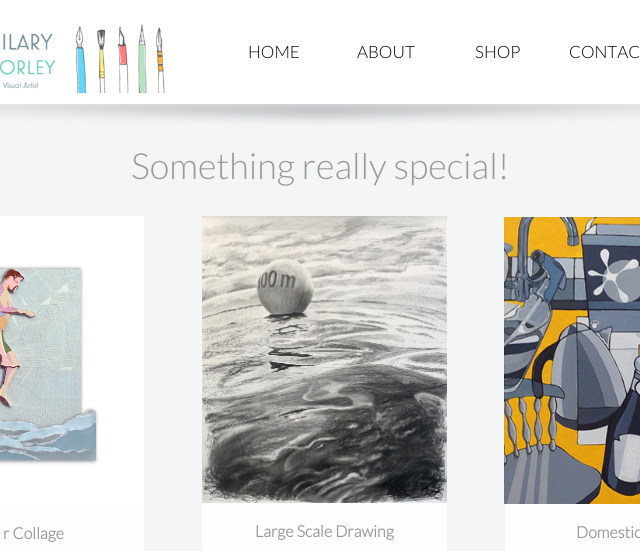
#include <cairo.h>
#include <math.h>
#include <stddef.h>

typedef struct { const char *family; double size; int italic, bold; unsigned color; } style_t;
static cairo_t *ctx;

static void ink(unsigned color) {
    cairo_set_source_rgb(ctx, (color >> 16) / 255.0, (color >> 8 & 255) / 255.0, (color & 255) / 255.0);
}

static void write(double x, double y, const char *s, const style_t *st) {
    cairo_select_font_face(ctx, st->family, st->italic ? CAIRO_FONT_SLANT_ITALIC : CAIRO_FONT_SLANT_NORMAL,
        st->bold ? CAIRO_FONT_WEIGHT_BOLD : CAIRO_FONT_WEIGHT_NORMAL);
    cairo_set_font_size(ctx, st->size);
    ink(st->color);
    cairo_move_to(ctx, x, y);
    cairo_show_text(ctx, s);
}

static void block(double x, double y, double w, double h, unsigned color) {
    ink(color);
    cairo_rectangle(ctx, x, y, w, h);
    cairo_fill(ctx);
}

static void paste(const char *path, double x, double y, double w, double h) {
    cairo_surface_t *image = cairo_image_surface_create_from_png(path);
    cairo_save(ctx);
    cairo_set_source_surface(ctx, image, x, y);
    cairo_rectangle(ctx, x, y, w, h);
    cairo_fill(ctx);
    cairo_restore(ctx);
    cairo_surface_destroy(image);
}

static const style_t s1 = {"Lato Light", 17, 0, 0, 0x000000};
static const style_t s2 = {"Lato Light", 36, 0, 0, 0x999999};
static const style_t s3 = {"Lato", 16, 0, 1, 0x999999};

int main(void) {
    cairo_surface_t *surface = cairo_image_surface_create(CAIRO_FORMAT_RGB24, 640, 551);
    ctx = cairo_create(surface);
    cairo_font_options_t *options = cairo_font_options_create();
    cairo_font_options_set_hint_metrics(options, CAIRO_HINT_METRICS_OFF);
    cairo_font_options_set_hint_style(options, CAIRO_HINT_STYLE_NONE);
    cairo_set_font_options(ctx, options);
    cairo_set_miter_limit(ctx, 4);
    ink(0xffffff);
    cairo_paint(ctx);
    paste("pic1.png", 0, 24, 165, 69);
    write(248, 58, "HOME", &s1);
    write(357, 58, "ABOUT", &s1);
    write(475, 58, "SHOP", &s1);
    write(569, 58, "CONTAC", &s1);
    block(0, 104, 640, 447, 0xf4f5f6);
    paste("pic2.png", 0, 104, 640, 21);
    write(131, 179, "Something really special!", &s2);
    paste("pic3.png", 0, 216, 144, 287);
    paste("pic4.png", 202, 216, 245, 287);
    paste("pic5.png", 504, 217, 136, 287);
    block(0, 503, 144, 48, 0xfefefe);
    write(3, 539, "r Collage", &s3);
    block(202, 503, 245, 48, 0xfefefe);
    write(255, 537, "Large Scale Drawing", &s3);
    block(505, 504, 135, 47, 0xfefefe);
    write(576, 538, "Domestic", &s3);
    cairo_surface_write_to_png(surface, "screenshot.png");
    cairo_font_options_destroy(options);
    cairo_destroy(ctx);
    cairo_surface_destroy(surface);
    return 0;
}
